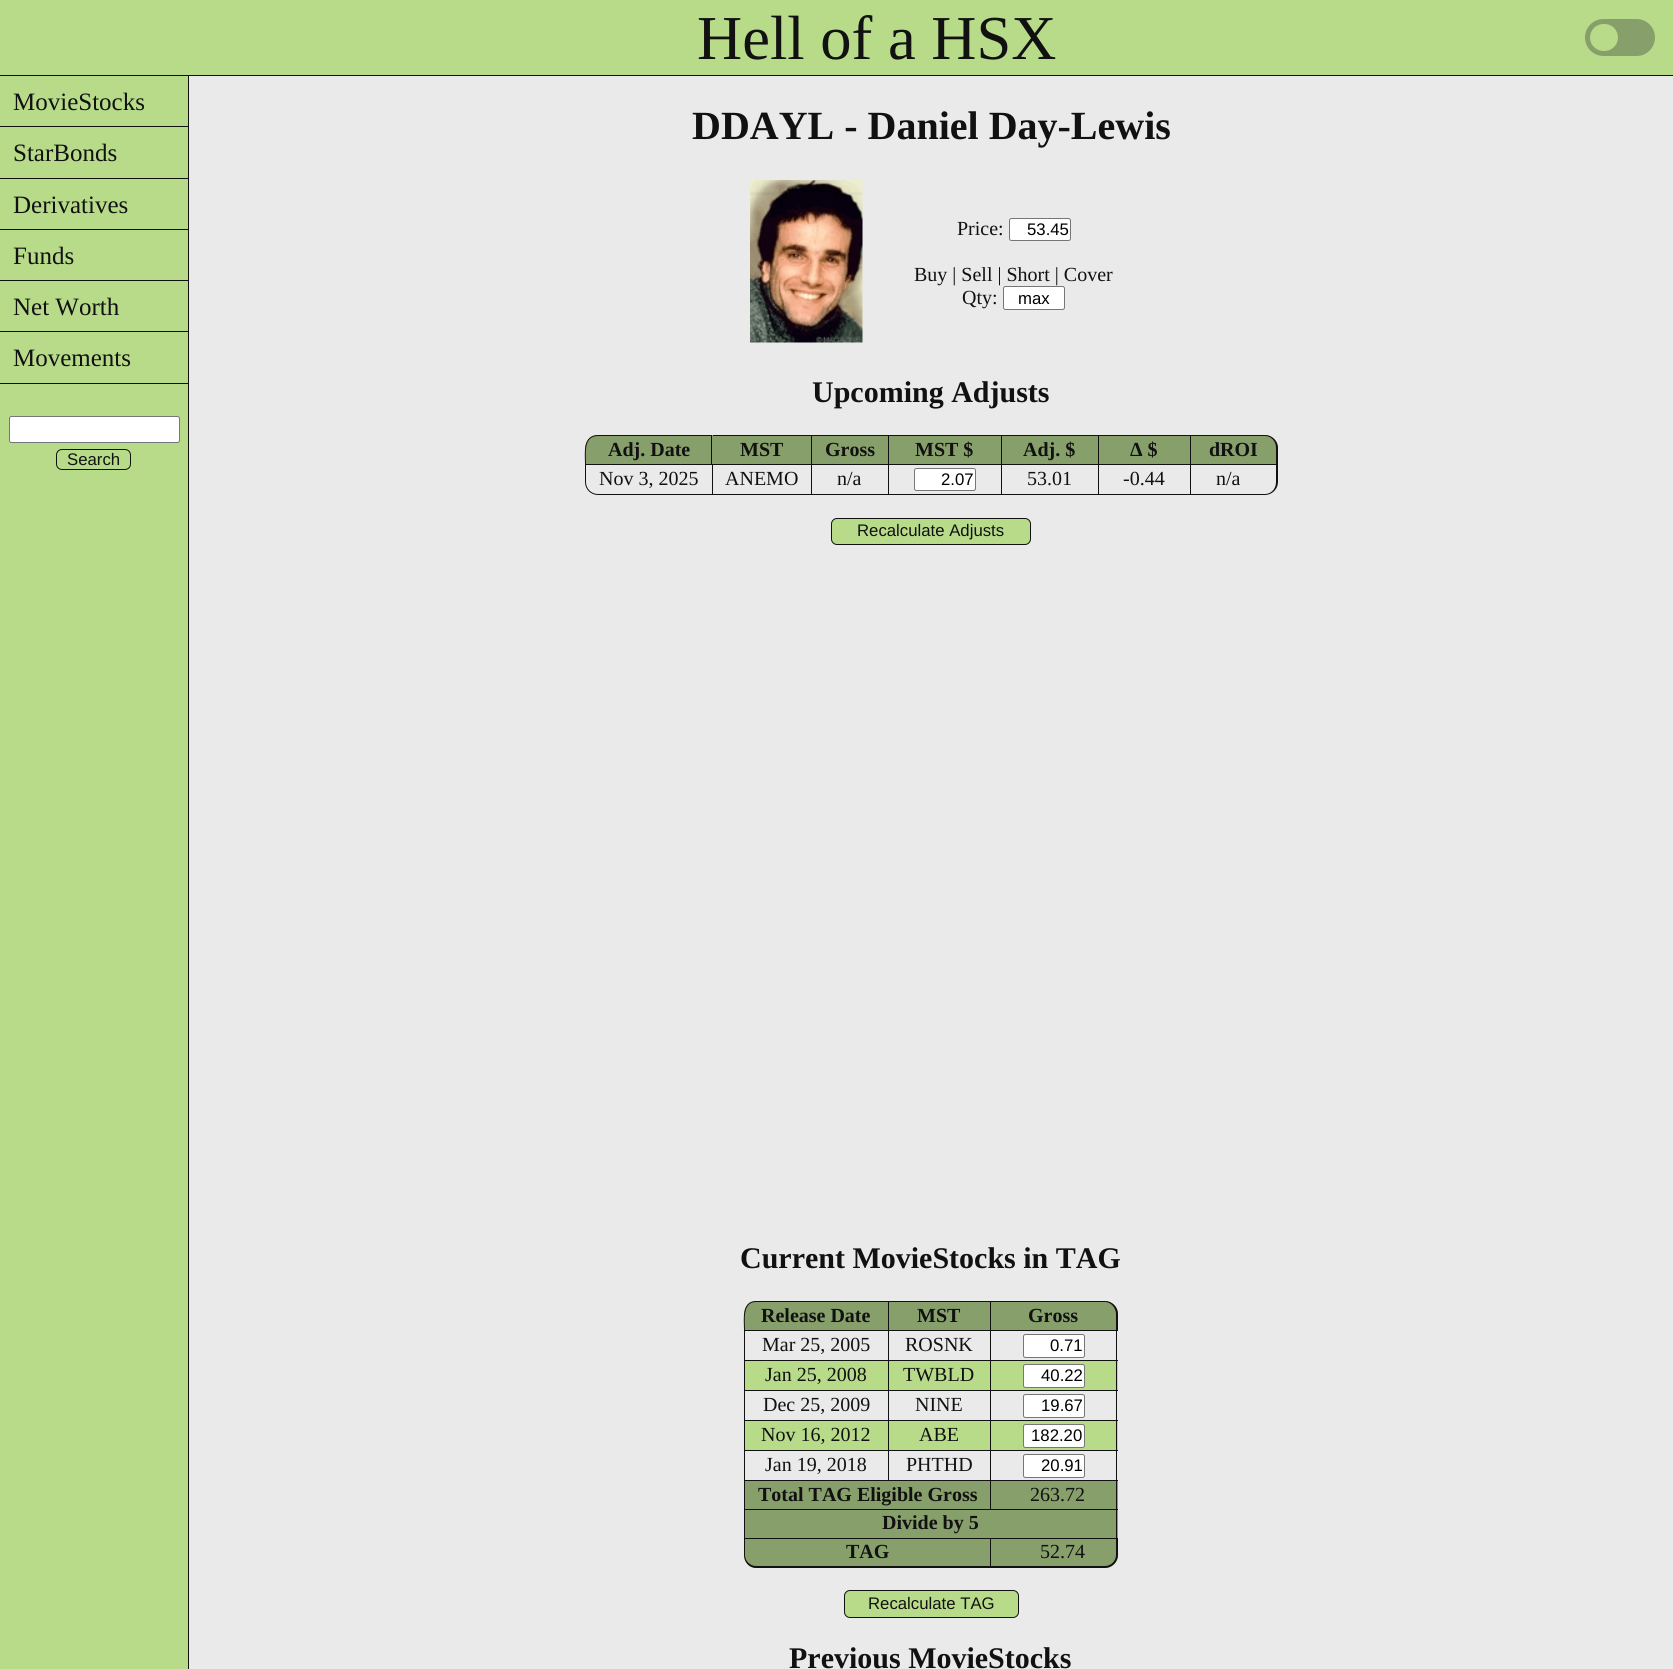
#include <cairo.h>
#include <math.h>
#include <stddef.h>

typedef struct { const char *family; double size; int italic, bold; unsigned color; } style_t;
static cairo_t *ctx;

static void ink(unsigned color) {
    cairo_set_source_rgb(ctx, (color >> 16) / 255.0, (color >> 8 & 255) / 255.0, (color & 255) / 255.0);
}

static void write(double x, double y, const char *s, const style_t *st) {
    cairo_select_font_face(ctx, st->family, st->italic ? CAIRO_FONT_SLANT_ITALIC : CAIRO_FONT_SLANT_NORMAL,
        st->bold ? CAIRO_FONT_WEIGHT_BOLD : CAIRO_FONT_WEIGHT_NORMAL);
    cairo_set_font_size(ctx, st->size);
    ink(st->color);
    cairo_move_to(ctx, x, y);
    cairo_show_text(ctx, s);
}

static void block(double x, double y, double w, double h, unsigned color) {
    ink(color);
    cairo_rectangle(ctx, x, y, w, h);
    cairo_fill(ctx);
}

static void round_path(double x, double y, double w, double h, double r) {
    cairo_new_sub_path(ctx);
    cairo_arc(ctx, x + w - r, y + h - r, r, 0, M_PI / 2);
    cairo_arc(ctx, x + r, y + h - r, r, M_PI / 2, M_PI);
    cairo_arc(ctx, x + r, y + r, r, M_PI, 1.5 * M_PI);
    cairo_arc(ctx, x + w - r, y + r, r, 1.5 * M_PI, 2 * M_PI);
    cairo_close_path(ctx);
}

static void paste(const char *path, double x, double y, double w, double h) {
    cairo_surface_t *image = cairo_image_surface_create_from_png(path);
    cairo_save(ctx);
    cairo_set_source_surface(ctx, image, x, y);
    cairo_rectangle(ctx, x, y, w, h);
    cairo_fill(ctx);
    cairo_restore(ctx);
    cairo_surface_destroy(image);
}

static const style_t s1 = {"Liberation Serif", 62.5, 0, 0, 0x111111};
static const style_t s2 = {"Liberation Serif", 25, 0, 0, 0x111111};
static const style_t s3 = {"Liberation Sans", 16.75, 0, 0, 0x111111};
static const style_t s4 = {"Liberation Serif", 40, 0, 1, 0x111111};
static const style_t s5 = {"Liberation Serif", 20, 0, 0, 0x111111};
static const style_t s6 = {"Liberation Sans", 16.75, 0, 0, 0x000000};
static const style_t s7 = {"Liberation Serif", 30, 0, 1, 0x111111};
static const style_t s8 = {"Liberation Serif", 20, 0, 1, 0x111111};

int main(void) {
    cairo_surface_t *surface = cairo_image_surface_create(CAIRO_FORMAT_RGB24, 1673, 1669);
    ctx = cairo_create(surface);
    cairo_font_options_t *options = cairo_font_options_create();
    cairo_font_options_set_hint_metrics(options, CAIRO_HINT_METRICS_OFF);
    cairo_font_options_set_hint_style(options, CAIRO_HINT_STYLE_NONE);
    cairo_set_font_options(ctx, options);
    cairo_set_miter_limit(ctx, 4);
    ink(0xeaeaea);
    cairo_paint(ctx);
    block(0, 0, 1673, 75, 0xb8db8a);
    block(0, 75, 1673, 1, 0x111111);
    write(697, 59, "Hell of a HSX", &s1);
    ink(0x879f6a);
    round_path(1585, 19, 70, 37, 18.5);
    cairo_fill(ctx);
    ink(0xb8db8a);
    round_path(1590, 24, 28, 27, 13.5);
    cairo_fill(ctx);
    block(0, 76, 188, 1593, 0xb8db8a);
    block(188, 76, 1, 1593, 0x111111);
    block(0, 126, 188, 1, 0x111111);
    write(13, 110, "MovieStocks", &s2);
    block(0, 178, 188, 1, 0x111111);
    write(13, 161, "StarBonds", &s2);
    block(0, 229, 188, 1, 0x111111);
    write(13, 213, "Derivatives", &s2);
    block(0, 280, 188, 1, 0x111111);
    write(13, 264, "Funds", &s2);
    block(0, 331, 188, 1, 0x111111);
    write(13, 315, "Net Worth", &s2);
    block(0, 383, 188, 1, 0x111111);
    write(13, 366, "Movements", &s2);
    ink(0xffffff);
    round_path(9.5, 416.5, 170, 26, 2);
    cairo_fill_preserve(ctx);
    ink(0x767676);
    cairo_set_line_width(ctx, 1);
    cairo_stroke(ctx);
    round_path(56.5, 449.5, 74, 20, 5.5);
    ink(0x111111);
    cairo_stroke(ctx);
    write(67, 465, "Search", &s3);
    write(692, 139, "DDAYL - Daniel Day-Lewis", &s4);
    paste("pic1.png", 750, 180, 113, 163);
    write(957, 235, "Price:", &s5);
    ink(0xffffff);
    round_path(1009.5, 218.5, 61, 22, 2);
    cairo_fill_preserve(ctx);
    ink(0x767676);
    cairo_stroke(ctx);
    write(1027, 235, "53.45", &s6);
    write(914, 281, "Buy | Sell | Short | Cover", &s5);
    write(962, 304, "Qty:", &s5);
    ink(0xffffff);
    round_path(1003.5, 286.5, 61, 23, 2);
    cairo_fill_preserve(ctx);
    ink(0x767676);
    cairo_stroke(ctx);
    write(1018, 304, "max", &s6);
    write(812, 402, "Upcoming Adjusts", &s7);
    ink(0x879f6a);
    cairo_new_path(ctx);
    cairo_move_to(ctx, 598, 435);
    cairo_line_to(ctx, 713, 435);
    cairo_line_to(ctx, 713, 464);
    cairo_line_to(ctx, 585, 464);
    cairo_line_to(ctx, 585, 448);
    cairo_curve_to(ctx, 585, 441, 591, 435, 598, 435);
    cairo_close_path(ctx);
    cairo_fill(ctx);
    ink(0x111111);
    cairo_set_fill_rule(ctx, CAIRO_FILL_RULE_EVEN_ODD);
    cairo_new_path(ctx);
    cairo_move_to(ctx, 598, 435);
    cairo_line_to(ctx, 712, 435);
    cairo_line_to(ctx, 712, 464);
    cairo_line_to(ctx, 585, 464);
    cairo_curve_to(ctx, 585, 454, 582, 435, 598, 435);
    cairo_close_path(ctx);
    cairo_move_to(ctx, 598, 436);
    cairo_line_to(ctx, 711, 436);
    cairo_line_to(ctx, 711, 464);
    cairo_line_to(ctx, 586, 464);
    cairo_curve_to(ctx, 586, 454, 583, 436, 598, 436);
    cairo_close_path(ctx);
    cairo_fill(ctx);
    write(608, 456, "Adj. Date", &s8);
    block(713, 436, 175, 28, 0x879f6a);
    block(713, 435, 478, 1, 0x111111);
    block(811, 435, 1, 29, 0x111111);
    write(740, 456, "MST", &s8);
    block(888, 435, 1, 29, 0x111111);
    write(825, 456, "Gross", &s8);
    block(889, 436, 209, 28, 0x879f6a);
    block(1001, 435, 1, 29, 0x111111);
    write(915, 456, "MST $", &s8);
    block(1098, 435, 1, 29, 0x111111);
    write(1023, 456, "Adj. $", &s8);
    block(1099, 436, 91, 28, 0x879f6a);
    block(1190, 435, 1, 29, 0x111111);
    write(1130, 456, "Δ $", &s8);
    ink(0x879f6a);
    cairo_new_path(ctx);
    cairo_move_to(ctx, 1191, 435);
    cairo_line_to(ctx, 1265, 435);
    cairo_curve_to(ctx, 1272, 435, 1278, 441, 1278, 448);
    cairo_line_to(ctx, 1278, 464);
    cairo_line_to(ctx, 1191, 464);
    cairo_close_path(ctx);
    cairo_fill(ctx);
    ink(0x111111);
    cairo_new_path(ctx);
    cairo_move_to(ctx, 1191, 435);
    cairo_line_to(ctx, 1265, 435);
    cairo_curve_to(ctx, 1272, 435, 1278, 441, 1278, 448);
    cairo_line_to(ctx, 1278, 464);
    cairo_line_to(ctx, 1191, 464);
    cairo_close_path(ctx);
    cairo_move_to(ctx, 1191, 436);
    cairo_line_to(ctx, 1265, 436);
    cairo_curve_to(ctx, 1271, 436, 1276, 441, 1276, 448);
    cairo_line_to(ctx, 1276, 464);
    cairo_line_to(ctx, 1191, 464);
    cairo_close_path(ctx);
    cairo_fill(ctx);
    write(1209, 456, "dROI", &s8);
    cairo_new_path(ctx);
    cairo_move_to(ctx, 585.5, 464.5);
    cairo_line_to(ctx, 712.5, 464.5);
    cairo_line_to(ctx, 712.5, 494.5);
    cairo_line_to(ctx, 598, 494.5);
    cairo_curve_to(ctx, 591, 494.5, 585.5, 489, 585.5, 482);
    cairo_close_path(ctx);
    cairo_stroke(ctx);
    write(599, 485, "Nov 3, 2025", &s5);
    block(713, 464, 478, 1, 0x111111);
    block(811, 464, 1, 31, 0x111111);
    block(713, 494, 100, 1, 0x111111);
    write(725, 485, "ANEMO", &s5);
    block(888, 464, 1, 31, 0x111111);
    block(813, 494, 76, 1, 0x111111);
    write(837, 485, "n/a", &s5);
    block(1001, 464, 1, 31, 0x111111);
    block(889, 494, 114, 1, 0x111111);
    ink(0xffffff);
    round_path(914.5, 468.5, 61, 22, 2);
    cairo_fill_preserve(ctx);
    ink(0x767676);
    cairo_stroke(ctx);
    write(941, 485, "2.07", &s6);
    block(1098, 464, 1, 31, 0x111111);
    block(1003, 494, 96, 1, 0x111111);
    write(1027, 485, "53.01", &s5);
    block(1190, 464, 1, 31, 0x111111);
    block(1099, 494, 92, 1, 0x111111);
    write(1123, 485, "-0.44", &s5);
    cairo_new_path(ctx);
    cairo_move_to(ctx, 1191, 464);
    cairo_line_to(ctx, 1278, 464);
    cairo_line_to(ctx, 1278, 482);
    cairo_curve_to(ctx, 1278, 489, 1272, 495, 1265, 495);
    cairo_line_to(ctx, 1191, 495);
    cairo_close_path(ctx);
    cairo_move_to(ctx, 1191, 465);
    cairo_line_to(ctx, 1276, 465);
    cairo_line_to(ctx, 1276, 482);
    cairo_curve_to(ctx, 1276, 489, 1271, 494, 1265, 494);
    cairo_line_to(ctx, 1191, 494);
    cairo_close_path(ctx);
    cairo_fill(ctx);
    write(1216, 485, "n/a", &s5);
    ink(0xb8db8a);
    round_path(831.5, 518.5, 199, 26, 5.5);
    cairo_fill_preserve(ctx);
    ink(0x111111);
    cairo_stroke(ctx);
    write(857, 536, "Recalculate Adjusts", &s3);
    write(740, 1268, "Current MovieStocks in TAG", &s7);
    ink(0x879f6a);
    cairo_new_path(ctx);
    cairo_move_to(ctx, 757, 1301);
    cairo_line_to(ctx, 889, 1301);
    cairo_line_to(ctx, 889, 1330);
    cairo_line_to(ctx, 744, 1330);
    cairo_line_to(ctx, 744, 1314);
    cairo_curve_to(ctx, 744, 1307, 750, 1301, 757, 1301);
    cairo_close_path(ctx);
    cairo_fill(ctx);
    ink(0x111111);
    cairo_new_path(ctx);
    cairo_move_to(ctx, 756, 1301);
    cairo_line_to(ctx, 889, 1301);
    cairo_line_to(ctx, 889, 1330);
    cairo_line_to(ctx, 744, 1330);
    cairo_curve_to(ctx, 744, 1320, 741, 1301, 756, 1301);
    cairo_close_path(ctx);
    cairo_move_to(ctx, 756, 1302);
    cairo_line_to(ctx, 888, 1302);
    cairo_line_to(ctx, 888, 1330);
    cairo_line_to(ctx, 745, 1330);
    cairo_curve_to(ctx, 745, 1321, 742, 1302, 756, 1302);
    cairo_close_path(ctx);
    cairo_fill(ctx);
    write(761, 1322, "Release Date", &s8);
    block(889, 1302, 101, 28, 0x879f6a);
    block(889, 1301, 102, 1, 0x111111);
    block(990, 1301, 1, 29, 0x111111);
    write(917, 1322, "MST", &s8);
    ink(0x879f6a);
    cairo_new_path(ctx);
    cairo_move_to(ctx, 991, 1301);
    cairo_line_to(ctx, 1105, 1301);
    cairo_curve_to(ctx, 1112, 1301, 1118, 1307, 1118, 1314);
    cairo_line_to(ctx, 1118, 1330);
    cairo_line_to(ctx, 991, 1330);
    cairo_close_path(ctx);
    cairo_fill(ctx);
    ink(0x111111);
    cairo_new_path(ctx);
    cairo_move_to(ctx, 991, 1301);
    cairo_line_to(ctx, 1105, 1301);
    cairo_curve_to(ctx, 1112, 1301, 1118, 1307, 1118, 1314);
    cairo_line_to(ctx, 1118, 1330);
    cairo_line_to(ctx, 991, 1330);
    cairo_close_path(ctx);
    cairo_move_to(ctx, 991, 1302);
    cairo_line_to(ctx, 1105, 1302);
    cairo_curve_to(ctx, 1111, 1302, 1116, 1308, 1116, 1314);
    cairo_line_to(ctx, 1116, 1330);
    cairo_line_to(ctx, 991, 1330);
    cairo_close_path(ctx);
    cairo_fill(ctx);
    write(1028, 1322, "Gross", &s8);
    cairo_rectangle(ctx, 744.5, 1330.5, 144, 30);
    cairo_stroke(ctx);
    write(762, 1351, "Mar 25, 2005", &s5);
    block(889, 1330, 229, 1, 0x111111);
    block(990, 1330, 1, 180, 0x111111);
    block(889, 1360, 102, 1, 0x111111);
    write(905, 1351, "ROSNK", &s5);
    block(1116, 1330, 1, 31, 0x111111);
    block(991, 1360, 127, 1, 0x111111);
    ink(0xffffff);
    round_path(1023.5, 1334.5, 61, 23, 2);
    cairo_fill_preserve(ctx);
    ink(0x767676);
    cairo_stroke(ctx);
    write(1050, 1351, "0.71", &s6);
    block(745, 1361, 143, 29, 0xb8db8a);
    block(888, 1361, 1, 120, 0x111111);
    block(744, 1390, 247, 1, 0x111111);
    block(744, 1361, 1, 30, 0x111111);
    write(765, 1381, "Jan 25, 2008", &s5);
    block(889, 1361, 101, 29, 0xb8db8a);
    write(903, 1381, "TWBLD", &s5);
    block(991, 1361, 127, 29, 0xb8db8a);
    block(1116, 1361, 1, 60, 0x111111);
    block(991, 1390, 127, 1, 0x111111);
    ink(0xffffff);
    round_path(1023.5, 1364.5, 61, 23, 2);
    cairo_fill_preserve(ctx);
    ink(0x767676);
    cairo_stroke(ctx);
    write(1041, 1381, "40.22", &s6);
    block(744, 1420, 374, 1, 0x111111);
    block(744, 1391, 1, 30, 0x111111);
    write(763, 1411, "Dec 25, 2009", &s5);
    write(915, 1411, "NINE", &s5);
    ink(0xffffff);
    round_path(1023.5, 1394.5, 61, 23, 2);
    cairo_fill_preserve(ctx);
    ink(0x767676);
    cairo_stroke(ctx);
    write(1041, 1411, "19.67", &s6);
    block(745, 1421, 143, 29, 0xb8db8a);
    block(744, 1450, 247, 1, 0x111111);
    block(744, 1421, 1, 30, 0x111111);
    write(761, 1441, "Nov 16, 2012", &s5);
    block(889, 1421, 101, 29, 0xb8db8a);
    write(919, 1441, "ABE", &s5);
    block(991, 1421, 127, 29, 0xb8db8a);
    block(1116, 1421, 1, 60, 0x111111);
    block(991, 1450, 127, 1, 0x111111);
    ink(0xffffff);
    round_path(1023.5, 1424.5, 61, 23, 2);
    cairo_fill_preserve(ctx);
    ink(0x767676);
    cairo_stroke(ctx);
    write(1031, 1441, "182.20", &s6);
    block(744, 1480, 374, 1, 0x111111);
    block(744, 1451, 1, 30, 0x111111);
    write(765, 1471, "Jan 19, 2018", &s5);
    write(906, 1471, "PHTHD", &s5);
    ink(0xffffff);
    round_path(1023.5, 1454.5, 61, 23, 2);
    cairo_fill_preserve(ctx);
    ink(0x767676);
    cairo_stroke(ctx);
    write(1041, 1471, "20.91", &s6);
    block(745, 1481, 245, 28, 0x879f6a);
    block(744, 1509, 247, 1, 0x111111);
    block(744, 1481, 1, 29, 0x111111);
    write(758, 1501, "Total TAG Eligible Gross", &s8);
    block(991, 1481, 127, 28, 0x879f6a);
    block(1116, 1481, 1, 29, 0x111111);
    block(991, 1509, 127, 1, 0x111111);
    write(1030, 1501, "263.72", &s5);
    block(745, 1510, 373, 28, 0x879f6a);
    block(1116, 1510, 1, 29, 0x111111);
    block(744, 1538, 374, 1, 0x111111);
    block(744, 1510, 1, 29, 0x111111);
    write(882, 1529, "Divide by 5", &s8);
    ink(0x879f6a);
    cairo_new_path(ctx);
    cairo_move_to(ctx, 744, 1539);
    cairo_line_to(ctx, 991, 1539);
    cairo_line_to(ctx, 991, 1568);
    cairo_line_to(ctx, 757, 1568);
    cairo_curve_to(ctx, 750, 1568, 744, 1562, 744, 1555);
    cairo_close_path(ctx);
    cairo_fill(ctx);
    ink(0x111111);
    cairo_new_path(ctx);
    cairo_move_to(ctx, 744, 1539);
    cairo_line_to(ctx, 991, 1539);
    cairo_line_to(ctx, 991, 1568);
    cairo_line_to(ctx, 756, 1568);
    cairo_curve_to(ctx, 749, 1568, 744, 1562, 744, 1555);
    cairo_close_path(ctx);
    cairo_move_to(ctx, 745, 1539);
    cairo_line_to(ctx, 990, 1539);
    cairo_line_to(ctx, 990, 1566);
    cairo_line_to(ctx, 756, 1566);
    cairo_curve_to(ctx, 750, 1566, 745, 1561, 745, 1555);
    cairo_close_path(ctx);
    cairo_fill(ctx);
    write(846, 1558, "TAG", &s8);
    ink(0x879f6a);
    cairo_new_path(ctx);
    cairo_move_to(ctx, 991, 1539);
    cairo_line_to(ctx, 1118, 1539);
    cairo_line_to(ctx, 1118, 1555);
    cairo_curve_to(ctx, 1118, 1562, 1112, 1568, 1105, 1568);
    cairo_line_to(ctx, 991, 1568);
    cairo_close_path(ctx);
    cairo_fill(ctx);
    ink(0x111111);
    cairo_new_path(ctx);
    cairo_move_to(ctx, 991, 1539);
    cairo_line_to(ctx, 1118, 1539);
    cairo_line_to(ctx, 1118, 1555);
    cairo_curve_to(ctx, 1118, 1562, 1112, 1568, 1105, 1568);
    cairo_line_to(ctx, 991, 1568);
    cairo_close_path(ctx);
    cairo_move_to(ctx, 991, 1539);
    cairo_line_to(ctx, 1116, 1539);
    cairo_line_to(ctx, 1116, 1555);
    cairo_curve_to(ctx, 1116, 1561, 1111, 1566, 1105, 1566);
    cairo_line_to(ctx, 991, 1566);
    cairo_close_path(ctx);
    cairo_fill(ctx);
    write(1040, 1558, "52.74", &s5);
    ink(0xb8db8a);
    round_path(844.5, 1590.5, 174, 27, 5.5);
    cairo_fill_preserve(ctx);
    ink(0x111111);
    cairo_stroke(ctx);
    write(868, 1609, "Recalculate TAG", &s3);
    write(789, 1668, "Previous MovieStocks", &s7);
    cairo_surface_write_to_png(surface, "screenshot.png");
    cairo_font_options_destroy(options);
    cairo_destroy(ctx);
    cairo_surface_destroy(surface);
    return 0;
}
